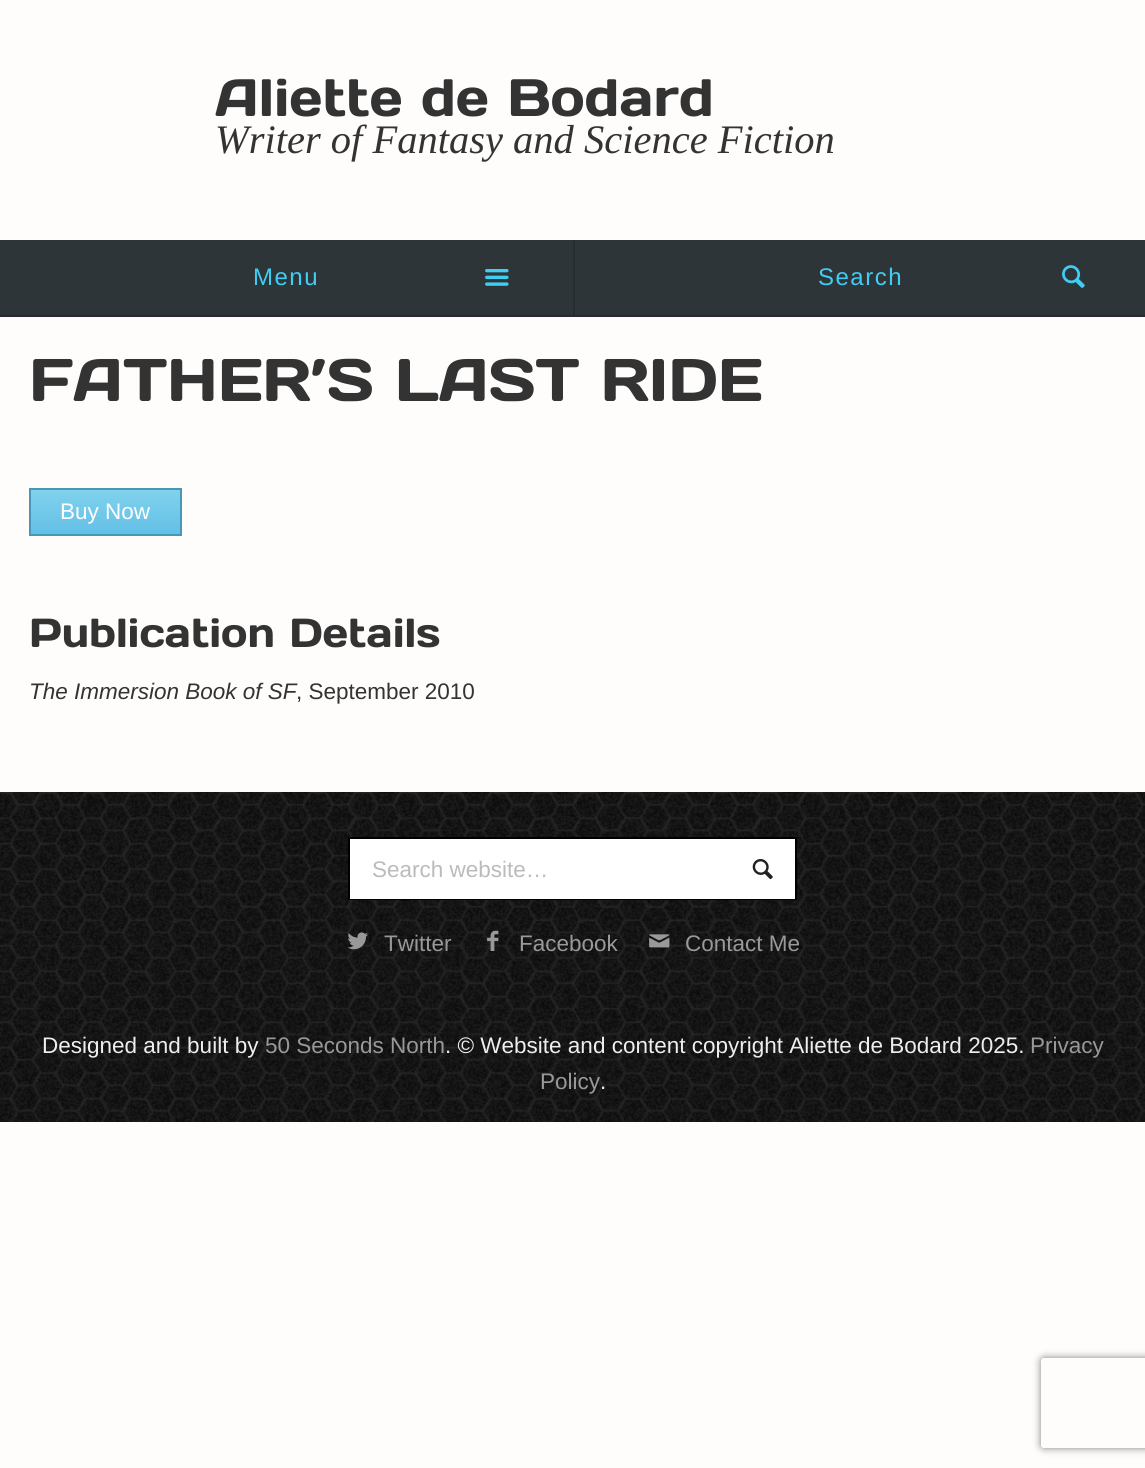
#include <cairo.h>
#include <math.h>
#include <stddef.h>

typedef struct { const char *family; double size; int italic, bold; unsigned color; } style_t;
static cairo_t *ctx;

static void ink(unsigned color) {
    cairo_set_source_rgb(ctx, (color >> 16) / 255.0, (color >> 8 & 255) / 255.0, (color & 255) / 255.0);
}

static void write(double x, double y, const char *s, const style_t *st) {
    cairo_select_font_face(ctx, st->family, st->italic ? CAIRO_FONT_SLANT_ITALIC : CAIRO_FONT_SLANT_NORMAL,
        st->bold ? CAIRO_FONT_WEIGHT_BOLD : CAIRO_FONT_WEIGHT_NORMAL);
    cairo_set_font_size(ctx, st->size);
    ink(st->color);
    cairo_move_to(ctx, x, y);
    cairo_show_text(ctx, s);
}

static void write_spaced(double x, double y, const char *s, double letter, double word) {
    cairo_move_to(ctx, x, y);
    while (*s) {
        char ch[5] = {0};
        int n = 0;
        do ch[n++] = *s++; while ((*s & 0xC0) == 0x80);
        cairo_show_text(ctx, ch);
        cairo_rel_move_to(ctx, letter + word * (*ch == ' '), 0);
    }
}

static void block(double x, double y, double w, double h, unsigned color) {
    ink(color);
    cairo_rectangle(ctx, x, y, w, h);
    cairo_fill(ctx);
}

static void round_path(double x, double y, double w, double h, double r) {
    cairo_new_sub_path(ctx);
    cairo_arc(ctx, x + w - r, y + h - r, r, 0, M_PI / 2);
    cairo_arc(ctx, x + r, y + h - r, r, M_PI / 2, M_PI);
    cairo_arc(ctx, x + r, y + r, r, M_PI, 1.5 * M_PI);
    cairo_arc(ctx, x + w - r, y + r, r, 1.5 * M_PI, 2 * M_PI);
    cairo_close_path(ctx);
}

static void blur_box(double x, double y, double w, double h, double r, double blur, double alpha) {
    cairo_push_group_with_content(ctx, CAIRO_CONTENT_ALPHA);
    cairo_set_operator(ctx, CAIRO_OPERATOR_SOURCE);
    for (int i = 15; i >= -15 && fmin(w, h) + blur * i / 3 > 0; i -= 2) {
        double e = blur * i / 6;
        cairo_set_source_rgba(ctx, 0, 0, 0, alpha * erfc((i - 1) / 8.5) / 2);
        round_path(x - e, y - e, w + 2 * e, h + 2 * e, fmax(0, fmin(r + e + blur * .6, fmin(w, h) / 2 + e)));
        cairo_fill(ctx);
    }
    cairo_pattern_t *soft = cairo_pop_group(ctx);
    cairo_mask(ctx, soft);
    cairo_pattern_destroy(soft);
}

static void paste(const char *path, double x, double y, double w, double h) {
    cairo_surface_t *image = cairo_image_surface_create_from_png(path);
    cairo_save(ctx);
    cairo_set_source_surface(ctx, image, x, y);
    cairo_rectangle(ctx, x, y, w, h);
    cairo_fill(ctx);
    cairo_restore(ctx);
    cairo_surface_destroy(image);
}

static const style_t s1 = {"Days", 52.5, 0, 0, 0x333333};
static const style_t s2 = {"Liberation Serif", 40.5, 1, 0, 0x333333};
static const style_t s3 = {"Days", 60, 0, 0, 0x333333};
static const style_t s4 = {"Liberation Sans", 22.5, 0, 0, 0xffffff};
static const style_t s5 = {"Days", 40.5, 0, 0, 0x333333};
static const style_t s6 = {"Liberation Sans", 22.5, 1, 0, 0x333333};
static const style_t s7 = {"Liberation Sans", 22.5, 0, 0, 0x333333};
static const style_t s8 = {"Liberation Sans", 22.5, 0, 0, 0xbbbbbb};
static const style_t s9 = {"Liberation Sans", 22.5, 0, 0, 0x999999};
static const style_t s10 = {"Liberation Sans", 22.5, 0, 0, 0xeeeeee};

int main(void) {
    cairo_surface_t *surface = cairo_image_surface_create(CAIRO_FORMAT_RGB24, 1145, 1468);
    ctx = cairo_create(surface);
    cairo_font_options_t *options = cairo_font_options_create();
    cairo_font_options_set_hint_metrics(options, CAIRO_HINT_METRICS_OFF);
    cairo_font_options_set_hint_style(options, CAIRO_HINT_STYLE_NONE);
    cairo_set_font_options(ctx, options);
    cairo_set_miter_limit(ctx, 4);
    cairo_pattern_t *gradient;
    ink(0xfefdfb);
    cairo_paint(ctx);
    write(215, 116, "Aliette de Bodard", &s1);
    write(215, 153, "Writer of Fantasy and Science Fiction", &s2);
    block(0, 240, 1145, 75, 0x2d3538);
    cairo_select_font_face(ctx, "Liberation Sans", CAIRO_FONT_SLANT_NORMAL, CAIRO_FONT_WEIGHT_NORMAL);
    cairo_set_font_size(ctx, 24);
    ink(0x40cdf3);
    write_spaced(253, 285, "Menu", 1.5, 0);
    paste("pic1.png", 485, 269, 24, 17);
    block(573, 240, 2, 75, 0x262d30);
    ink(0x40cdf3);
    write_spaced(818, 285, "Search", 1.5, 0);
    paste("pic2.png", 1062, 265, 23, 23);
    block(0, 315, 1145, 2, 0x262d30);
    write(29, 401, "FATHER’S LAST RIDE", &s3);
    gradient = cairo_pattern_create_linear(105, 489, 105, 534);
    cairo_pattern_add_color_stop_rgba(gradient, 0, 0.506, 0.824, 0.929, 1);
    cairo_pattern_add_color_stop_rgba(gradient, 1, 0.388, 0.753, 0.902, 1);
    cairo_set_source(ctx, gradient);
    cairo_pattern_destroy(gradient);
    cairo_rectangle(ctx, 31, 490, 149, 44);
    cairo_fill(ctx);
    cairo_rectangle(ctx, 30, 489, 151, 46);
    ink(0x4897b7);
    cairo_stroke(ctx);
    write(60, 519, "Buy Now", &s4);
    write(29, 647, "Publication Details", &s5);
    write(29, 699, "The Immersion Book of SF", &s6);
    write(296, 699, ", September 2010", &s7);
    paste("pic3.png", 0, 792, 1145, 330);
    block(350, 839, 445, 60, 0xffffff);
    block(348, 837, 449, 2, 0x000000);
    block(795, 837, 2, 63, 0x000000);
    block(348, 899, 449, 1, 0x000000);
    paste("pic4.png", 752, 859, 21, 21);
    block(348, 837, 2, 63, 0x000000);
    write(372, 877, "Search website…", &s8);
    paste("pic5.png", 347, 932, 21, 18);
    write(384, 951, "Twitter", &s9);
    paste("pic6.png", 487, 930, 12, 21);
    write(519, 951, "Facebook", &s9);
    paste("pic7.png", 649, 934, 21, 14);
    write(685, 951, "Contact Me", &s9);
    write(42, 1053, "Designed and built by", &s10);
    write(265, 1053, "50 Seconds North", &s9);
    write(445, 1053, ". © Website and content copyright Aliette de Bodard 2025.", &s10);
    write(1030, 1053, "Privacy", &s9);
    write(540, 1089, "Policy", &s9);
    write(600, 1089, ".", &s10);
    cairo_save(ctx);
    cairo_set_fill_rule(ctx, CAIRO_FILL_RULE_EVEN_ODD);
    cairo_new_path(ctx);
    cairo_move_to(ctx, 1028, 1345);
    cairo_line_to(ctx, 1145, 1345);
    cairo_line_to(ctx, 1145, 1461);
    cairo_line_to(ctx, 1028, 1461);
    cairo_close_path(ctx);
    cairo_move_to(ctx, 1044, 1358);
    cairo_line_to(ctx, 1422, 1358);
    cairo_curve_to(ctx, 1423.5, 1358, 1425, 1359.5, 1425, 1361);
    cairo_line_to(ctx, 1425, 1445);
    cairo_curve_to(ctx, 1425, 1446.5, 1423.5, 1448, 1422, 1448);
    cairo_line_to(ctx, 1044, 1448);
    cairo_curve_to(ctx, 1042.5, 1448, 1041, 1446.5, 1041, 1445);
    cairo_line_to(ctx, 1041, 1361);
    cairo_curve_to(ctx, 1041, 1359.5, 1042.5, 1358, 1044, 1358);
    cairo_close_path(ctx);
    cairo_clip(ctx);
    ink(0x808080);
    blur_box(1041, 1358, 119, 90, 3, 4, 1);
    cairo_restore(ctx);
    cairo_surface_write_to_png(surface, "screenshot.png");
    cairo_font_options_destroy(options);
    cairo_destroy(ctx);
    cairo_surface_destroy(surface);
    return 0;
}
